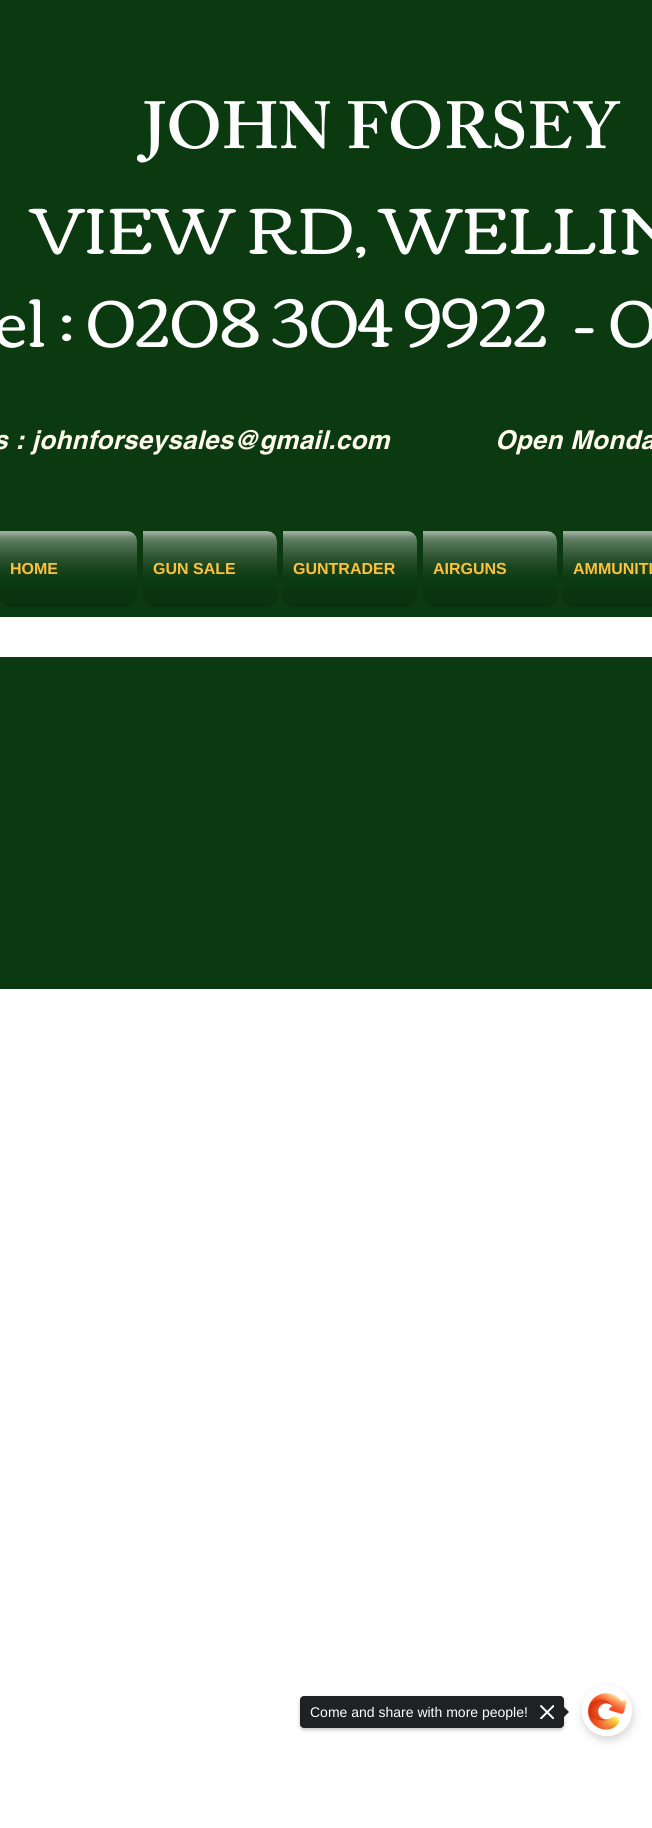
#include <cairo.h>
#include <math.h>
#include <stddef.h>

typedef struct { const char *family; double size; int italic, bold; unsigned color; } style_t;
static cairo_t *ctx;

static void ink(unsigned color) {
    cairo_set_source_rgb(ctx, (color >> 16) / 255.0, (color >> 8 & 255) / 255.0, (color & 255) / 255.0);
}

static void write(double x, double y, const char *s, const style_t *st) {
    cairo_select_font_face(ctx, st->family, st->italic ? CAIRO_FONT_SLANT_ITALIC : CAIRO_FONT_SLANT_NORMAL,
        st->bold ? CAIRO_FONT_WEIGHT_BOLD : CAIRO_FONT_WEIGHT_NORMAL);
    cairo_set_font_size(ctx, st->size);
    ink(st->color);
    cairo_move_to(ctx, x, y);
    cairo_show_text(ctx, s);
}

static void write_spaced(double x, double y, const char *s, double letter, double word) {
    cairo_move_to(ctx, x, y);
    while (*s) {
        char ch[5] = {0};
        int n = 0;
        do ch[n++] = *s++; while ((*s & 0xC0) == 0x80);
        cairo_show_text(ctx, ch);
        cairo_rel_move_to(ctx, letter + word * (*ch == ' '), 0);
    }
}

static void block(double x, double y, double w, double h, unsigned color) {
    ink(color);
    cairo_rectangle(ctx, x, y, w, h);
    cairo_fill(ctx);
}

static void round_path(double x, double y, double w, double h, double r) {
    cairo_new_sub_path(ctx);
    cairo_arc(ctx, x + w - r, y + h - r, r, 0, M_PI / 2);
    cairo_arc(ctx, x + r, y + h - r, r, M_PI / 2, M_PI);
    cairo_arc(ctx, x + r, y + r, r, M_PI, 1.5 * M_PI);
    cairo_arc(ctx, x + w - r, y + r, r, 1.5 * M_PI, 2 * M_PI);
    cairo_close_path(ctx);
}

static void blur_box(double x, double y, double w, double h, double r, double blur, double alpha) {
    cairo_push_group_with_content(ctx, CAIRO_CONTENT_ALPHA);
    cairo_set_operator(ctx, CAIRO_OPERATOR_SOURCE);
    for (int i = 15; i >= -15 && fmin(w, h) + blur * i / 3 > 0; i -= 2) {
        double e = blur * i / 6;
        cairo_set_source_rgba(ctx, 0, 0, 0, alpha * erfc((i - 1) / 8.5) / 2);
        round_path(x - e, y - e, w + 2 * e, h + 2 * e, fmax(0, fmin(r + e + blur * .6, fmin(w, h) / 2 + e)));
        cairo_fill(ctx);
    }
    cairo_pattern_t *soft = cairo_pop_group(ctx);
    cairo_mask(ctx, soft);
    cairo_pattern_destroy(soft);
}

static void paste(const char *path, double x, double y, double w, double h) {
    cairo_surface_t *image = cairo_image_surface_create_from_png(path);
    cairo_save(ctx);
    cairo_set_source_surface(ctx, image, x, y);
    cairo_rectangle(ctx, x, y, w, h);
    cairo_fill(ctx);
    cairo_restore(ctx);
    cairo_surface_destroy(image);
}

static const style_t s1 = {"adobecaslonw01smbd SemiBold", 66, 0, 0, 0xffffff};
static const style_t s2 = {"Corben", 66, 0, 0, 0xffffff};
static const style_t s3 = {"Liberation Sans", 16, 0, 1, 0xffc13d};
static const style_t s4 = {"Liberation Sans", 14, 0, 0, 0xffffff};

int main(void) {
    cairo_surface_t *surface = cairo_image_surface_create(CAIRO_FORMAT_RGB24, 652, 1828);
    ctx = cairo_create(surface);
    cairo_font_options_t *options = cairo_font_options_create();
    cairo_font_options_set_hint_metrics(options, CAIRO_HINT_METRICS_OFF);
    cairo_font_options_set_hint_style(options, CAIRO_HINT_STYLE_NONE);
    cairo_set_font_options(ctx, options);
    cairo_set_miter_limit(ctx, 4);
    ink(0xffffff);
    cairo_paint(ctx);
    block(0, 0, 652, 617, 0x0b3910);
    write(143, 148, "JOHN FORSEY", &s1);
    write(31, 254, "VIEW RD, WELLIN", &s2);
    write(-5, 347, "el : 0208 304 9922  - 0", &s2);
    cairo_select_font_face(ctx, "helvetica", CAIRO_FONT_SLANT_ITALIC, CAIRO_FONT_WEIGHT_BOLD);
    cairo_set_font_size(ctx, 26);
    ink(0xfff8eb);
    write_spaced(-7, 449, "s : johnforseysales@gmail.com", 0.25, 0);
    write_spaced(495, 449, "Open Monda", 0.25, 0);
    paste("pic1.png", 0, 531, 137, 46);
    paste("pic2.png", 0, 587, 137, 20);
    write(10, 574, "HOME", &s3);
    paste("pic3.png", 143, 531, 134, 46);
    paste("pic4.png", 143, 587, 134, 20);
    write(153, 574, "GUN SALE", &s3);
    paste("pic3.png", 283, 531, 134, 46);
    paste("pic4.png", 283, 587, 134, 20);
    write(293, 574, "GUNTRADER", &s3);
    paste("pic3.png", 423, 531, 134, 46);
    paste("pic4.png", 423, 587, 134, 20);
    write(433, 574, "AIRGUNS", &s3);
    paste("pic5.png", 563, 531, 89, 46);
    paste("pic6.png", 563, 587, 89, 20);
    write(573, 574, "AMMUNITI", &s3);
    block(0, 657, 652, 332, 0x0b3910);
    cairo_save(ctx);
    cairo_set_fill_rule(ctx, CAIRO_FILL_RULE_EVEN_ODD);
    cairo_new_path(ctx);
    cairo_move_to(ctx, 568, 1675);
    cairo_line_to(ctx, 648, 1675);
    cairo_line_to(ctx, 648, 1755);
    cairo_line_to(ctx, 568, 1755);
    cairo_close_path(ctx);
    cairo_move_to(ctx, 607, 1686);
    cairo_curve_to(ctx, 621, 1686, 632, 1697, 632, 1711);
    cairo_curve_to(ctx, 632, 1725, 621, 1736, 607, 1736);
    cairo_curve_to(ctx, 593, 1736, 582, 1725, 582, 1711);
    cairo_curve_to(ctx, 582, 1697, 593, 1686, 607, 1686);
    cairo_close_path(ctx);
    cairo_clip(ctx);
    ink(0x000000);
    blur_box(583, 1690, 50, 50, 25, 4.5, 0.17);
    cairo_restore(ctx);
    ink(0x000000);
    blur_box(300, 1698, 264, 32, 4, 2, 0.22);
    ink(0x202123);
    round_path(300, 1696, 264, 32, 4);
    cairo_fill(ctx);
    write(310, 1717, "Come and share with more people!", &s4);
    paste("pic7.png", 540, 1705, 14, 14);
    ink(0x202123);
    cairo_new_path(ctx);
    cairo_move_to(ctx, 562, 1719);
    cairo_line_to(ctx, 562, 1705);
    cairo_line_to(ctx, 569, 1712);
    cairo_close_path(ctx);
    cairo_fill(ctx);
    paste("pic8.png", 587, 1693, 40, 43);
    cairo_surface_write_to_png(surface, "screenshot.png");
    cairo_font_options_destroy(options);
    cairo_destroy(ctx);
    cairo_surface_destroy(surface);
    return 0;
}
